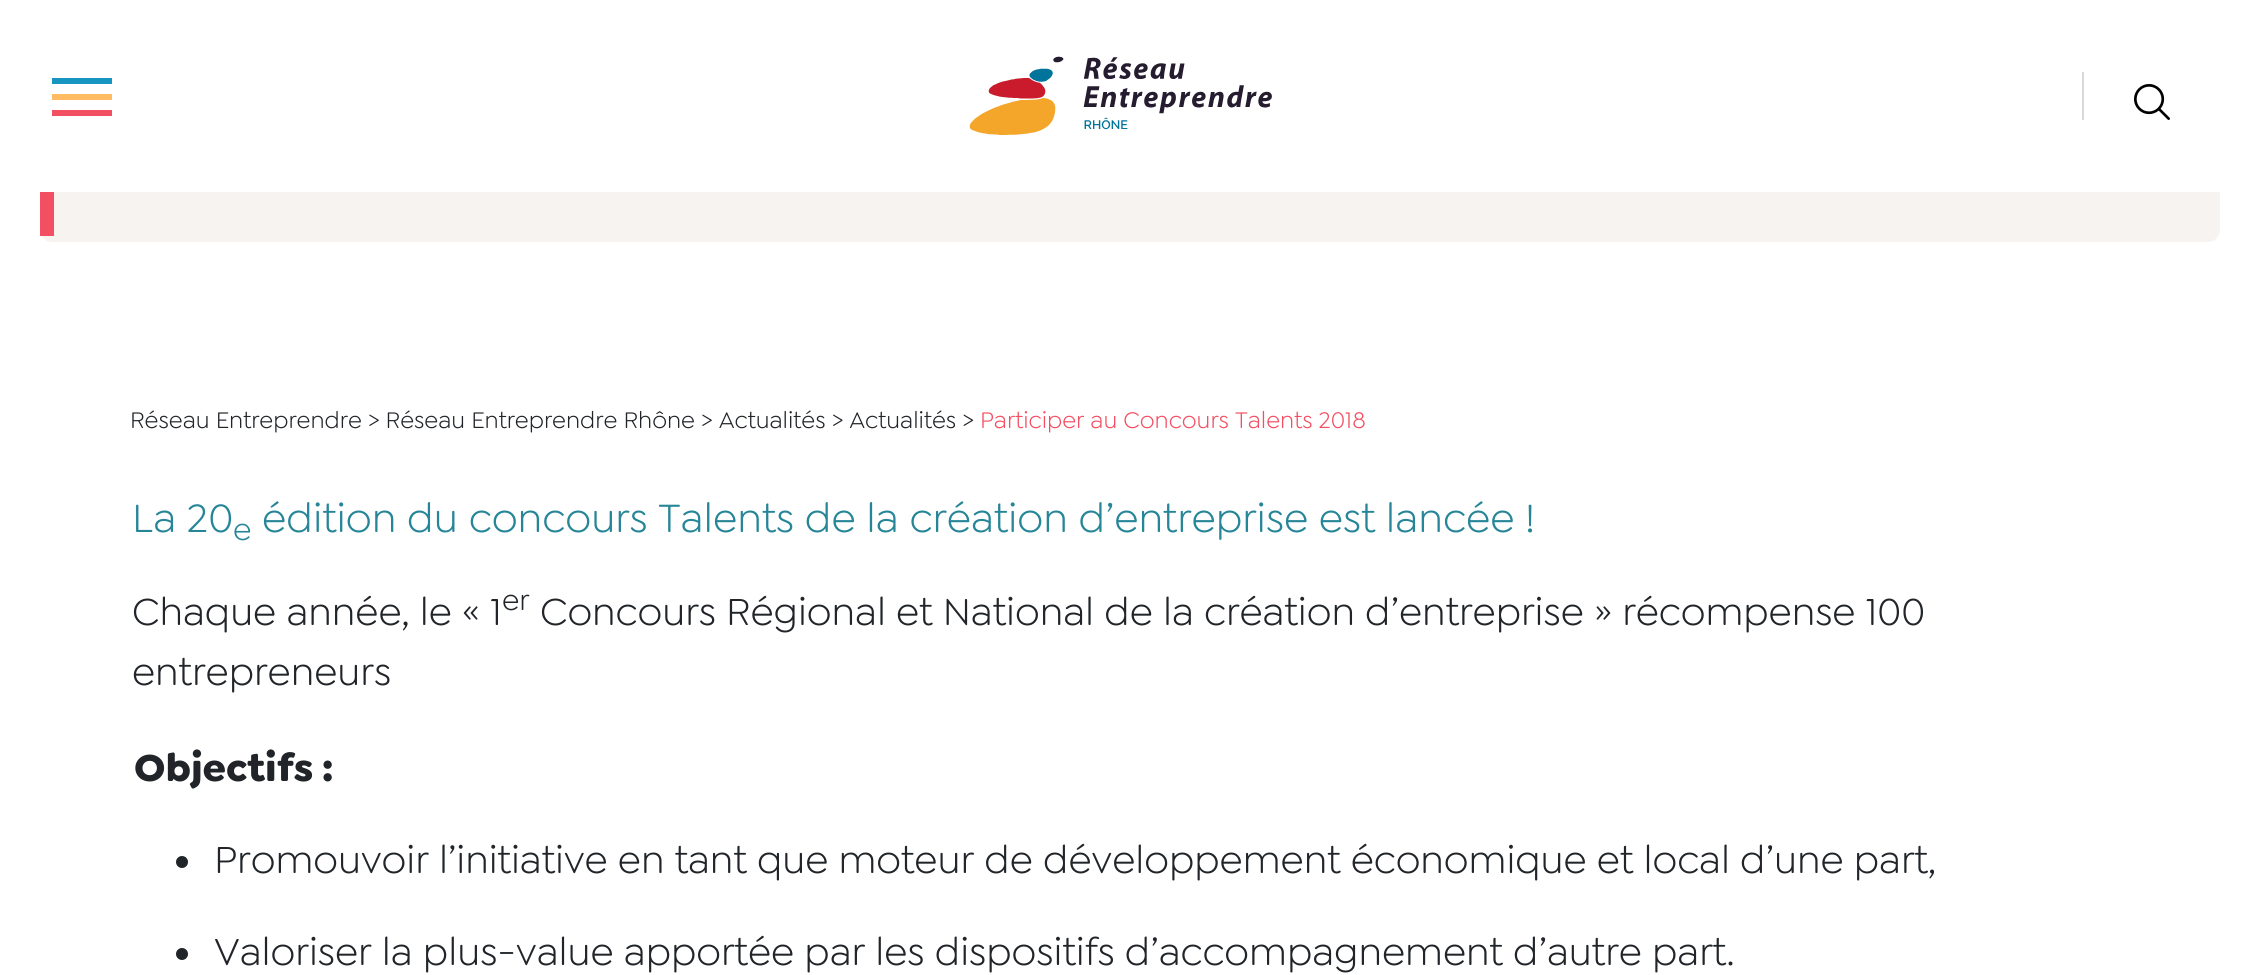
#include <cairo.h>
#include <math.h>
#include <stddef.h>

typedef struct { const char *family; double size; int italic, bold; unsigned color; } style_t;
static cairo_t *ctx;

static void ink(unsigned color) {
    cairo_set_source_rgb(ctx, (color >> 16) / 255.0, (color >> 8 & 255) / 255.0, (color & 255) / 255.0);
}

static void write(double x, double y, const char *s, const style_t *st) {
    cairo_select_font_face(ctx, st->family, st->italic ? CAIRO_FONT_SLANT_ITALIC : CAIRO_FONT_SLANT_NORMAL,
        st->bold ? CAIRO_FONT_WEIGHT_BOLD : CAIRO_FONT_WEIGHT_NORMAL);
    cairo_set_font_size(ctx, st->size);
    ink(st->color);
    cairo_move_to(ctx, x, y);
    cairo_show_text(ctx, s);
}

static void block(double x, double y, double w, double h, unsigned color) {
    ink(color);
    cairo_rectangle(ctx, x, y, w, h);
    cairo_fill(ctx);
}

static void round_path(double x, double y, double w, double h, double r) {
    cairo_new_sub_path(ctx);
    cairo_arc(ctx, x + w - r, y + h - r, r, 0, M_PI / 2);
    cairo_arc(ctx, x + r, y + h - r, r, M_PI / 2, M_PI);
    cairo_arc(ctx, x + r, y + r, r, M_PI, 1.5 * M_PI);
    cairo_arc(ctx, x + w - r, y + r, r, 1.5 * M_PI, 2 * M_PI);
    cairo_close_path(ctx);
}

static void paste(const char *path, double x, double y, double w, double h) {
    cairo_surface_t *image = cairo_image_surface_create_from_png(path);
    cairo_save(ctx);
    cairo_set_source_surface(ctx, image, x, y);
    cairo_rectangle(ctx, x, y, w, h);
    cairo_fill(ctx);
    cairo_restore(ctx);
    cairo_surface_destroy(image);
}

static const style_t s1 = {"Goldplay", 24, 0, 0, 0x212529};
static const style_t s2 = {"Goldplay", 24, 0, 0, 0xf34f63};
static const style_t s3 = {"Goldplay", 42, 0, 0, 0x268597};
static const style_t s4 = {"Goldplay", 32, 0, 0, 0x268597};
static const style_t s5 = {"Goldplay", 40, 0, 0, 0x212529};
static const style_t s6 = {"Goldplay", 30, 0, 0, 0x212529};
static const style_t s7 = {"Goldplay", 40, 0, 1, 0x212529};

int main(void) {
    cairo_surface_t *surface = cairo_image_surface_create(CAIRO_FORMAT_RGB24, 2259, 975);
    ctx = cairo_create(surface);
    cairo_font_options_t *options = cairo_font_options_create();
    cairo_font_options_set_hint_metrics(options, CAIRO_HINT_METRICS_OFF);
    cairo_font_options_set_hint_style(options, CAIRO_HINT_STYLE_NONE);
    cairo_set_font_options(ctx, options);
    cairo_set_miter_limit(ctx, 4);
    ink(0xffffff);
    cairo_paint(ctx);
    ink(0xf7f3f1);
    round_path(40, -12, 2180, 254, 12);
    cairo_fill(ctx);
    block(40, 0, 2180, 192, 0xffffff);
    block(52, 78, 60, 6, 0x1595bf);
    block(52, 94, 60, 6, 0xffbb61);
    block(52, 110, 60, 6, 0xf34f63);
    paste("pic1.png", 969, 56, 303, 79);
    block(2082, 72, 2, 48, 0xd9d9d9);
    paste("pic2.png", 2134, 84, 36, 36);
    block(40, 192, 14, 44, 0xf34f63);
    write(130, 428, "Réseau Entreprendre > Réseau Entreprendre Rhône > Actualités > Actualités >", &s1);
    write(980, 428, "Participer au Concours Talents 2018", &s2);
    write(132, 532, "La 20", &s3);
    write(233, 540, "e", &s4);
    write(262, 532, "édition du concours Talents de la création d’entreprise est lancée !", &s3);
    write(132, 625, "Chaque année, le « 1", &s5);
    write(502, 610, "er", &s6);
    write(540, 625, "Concours Régional et National de la création d’entreprise » récompense 100", &s5);
    write(132, 685, "entrepreneurs", &s5);
    write(134, 781, "Objectifs :", &s7);
    cairo_new_path(ctx);
    cairo_arc(ctx, 182, 862, 6, 0, 2 * M_PI);
    cairo_fill(ctx);
    write(214, 873, "Promouvoir l’initiative en tant que moteur de développement économique et local d’une part,", &s5);
    cairo_new_path(ctx);
    cairo_arc(ctx, 182, 954, 6, 0, 2 * M_PI);
    cairo_fill(ctx);
    write(214, 965, "Valoriser la plus-value apportée par les dispositifs d’accompagnement d’autre part.", &s5);
    cairo_surface_write_to_png(surface, "screenshot.png");
    cairo_font_options_destroy(options);
    cairo_destroy(ctx);
    cairo_surface_destroy(surface);
    return 0;
}
